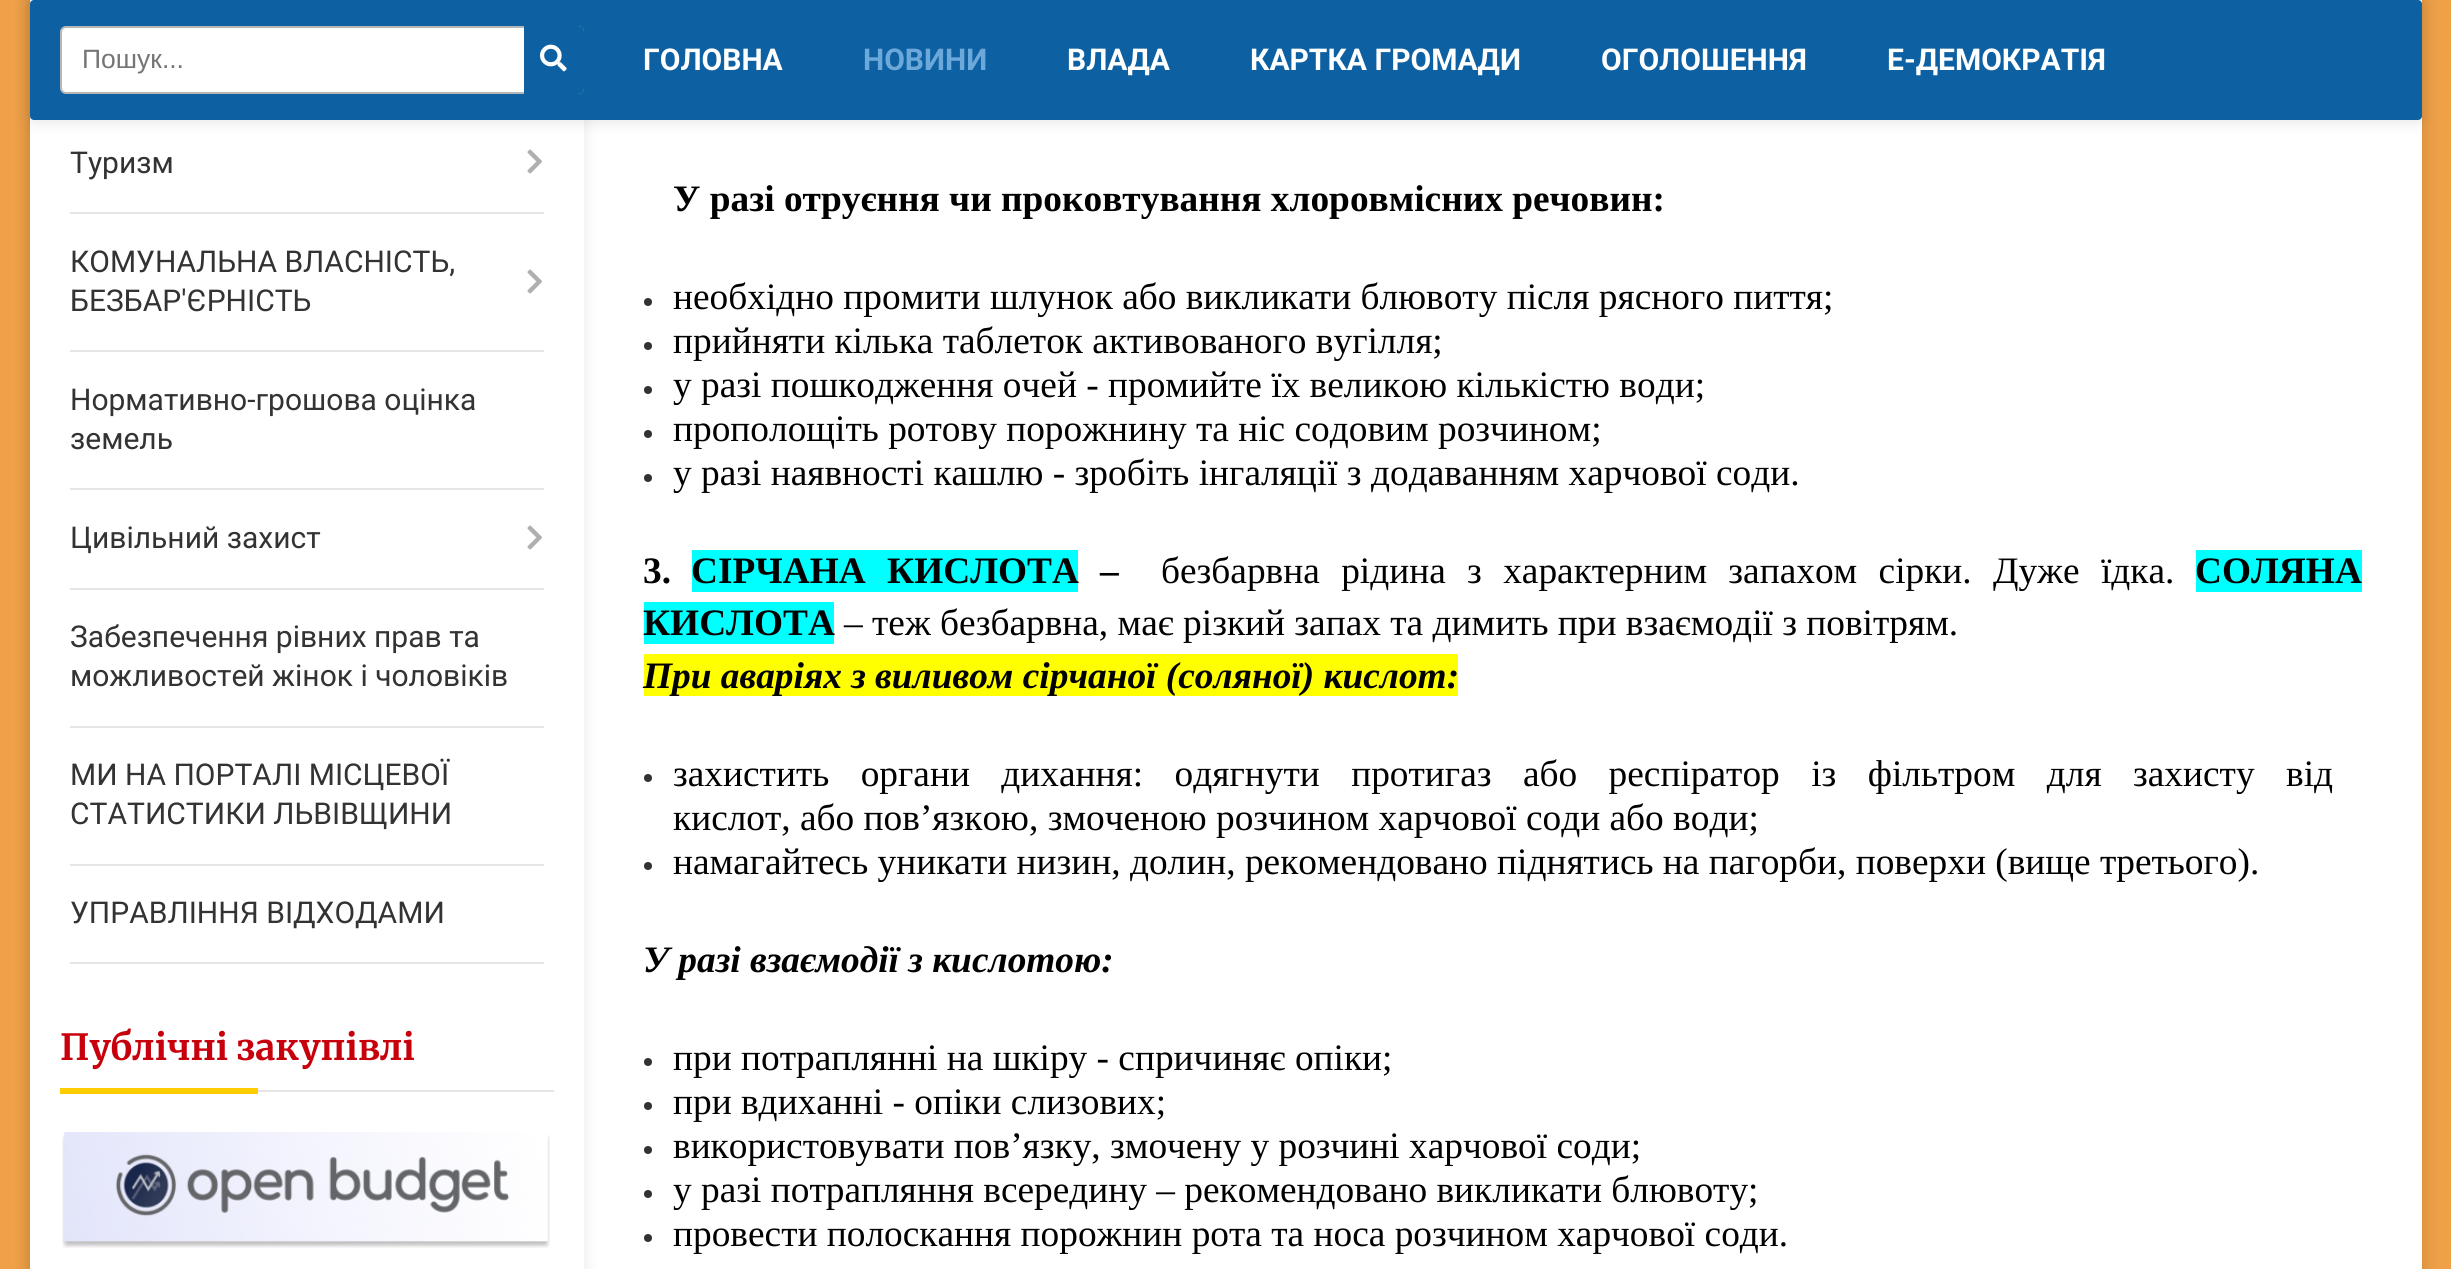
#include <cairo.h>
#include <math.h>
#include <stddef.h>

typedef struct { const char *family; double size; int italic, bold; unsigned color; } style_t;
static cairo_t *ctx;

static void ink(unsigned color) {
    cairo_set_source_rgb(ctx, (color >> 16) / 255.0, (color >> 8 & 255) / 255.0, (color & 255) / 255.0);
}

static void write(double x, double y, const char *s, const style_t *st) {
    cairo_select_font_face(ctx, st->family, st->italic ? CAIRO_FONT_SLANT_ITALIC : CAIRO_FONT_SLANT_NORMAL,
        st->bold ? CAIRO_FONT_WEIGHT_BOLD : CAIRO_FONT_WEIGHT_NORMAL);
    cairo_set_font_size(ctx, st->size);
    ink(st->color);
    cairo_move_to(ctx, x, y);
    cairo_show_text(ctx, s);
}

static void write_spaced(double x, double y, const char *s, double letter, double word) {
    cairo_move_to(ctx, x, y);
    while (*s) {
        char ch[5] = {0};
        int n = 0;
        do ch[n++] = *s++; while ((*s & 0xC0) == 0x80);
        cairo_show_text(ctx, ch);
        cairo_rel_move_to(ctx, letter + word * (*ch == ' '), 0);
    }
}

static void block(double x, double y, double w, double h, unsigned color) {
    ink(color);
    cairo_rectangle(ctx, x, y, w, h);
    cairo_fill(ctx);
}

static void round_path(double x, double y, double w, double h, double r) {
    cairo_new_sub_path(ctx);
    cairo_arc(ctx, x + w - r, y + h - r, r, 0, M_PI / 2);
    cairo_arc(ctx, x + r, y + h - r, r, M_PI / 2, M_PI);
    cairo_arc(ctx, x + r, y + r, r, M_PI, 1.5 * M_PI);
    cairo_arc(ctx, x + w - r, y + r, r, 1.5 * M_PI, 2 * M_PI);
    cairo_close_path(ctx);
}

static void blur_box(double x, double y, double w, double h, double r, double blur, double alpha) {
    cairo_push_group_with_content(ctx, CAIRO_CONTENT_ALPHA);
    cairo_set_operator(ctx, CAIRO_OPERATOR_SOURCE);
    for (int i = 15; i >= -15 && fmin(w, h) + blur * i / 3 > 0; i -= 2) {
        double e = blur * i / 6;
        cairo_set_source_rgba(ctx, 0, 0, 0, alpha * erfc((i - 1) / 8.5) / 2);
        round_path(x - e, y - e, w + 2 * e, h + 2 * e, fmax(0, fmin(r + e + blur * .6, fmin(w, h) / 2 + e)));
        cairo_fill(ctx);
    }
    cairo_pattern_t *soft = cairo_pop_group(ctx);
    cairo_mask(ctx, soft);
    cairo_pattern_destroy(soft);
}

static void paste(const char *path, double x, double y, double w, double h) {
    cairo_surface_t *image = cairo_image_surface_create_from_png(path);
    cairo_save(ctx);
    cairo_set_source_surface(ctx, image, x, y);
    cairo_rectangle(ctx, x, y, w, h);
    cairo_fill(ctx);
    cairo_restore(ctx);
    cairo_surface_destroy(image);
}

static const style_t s1 = {"Roboto", 30, 0, 0, 0x333333};
static const style_t s2 = {"Merriweather Light", 36, 0, 0, 0xc7000c};
static const style_t s3 = {"Roboto", 30, 0, 1, 0xffffff};
static const style_t s4 = {"Roboto", 30, 0, 1, 0x6ca8d9};
static const style_t s5 = {"Liberation Serif", 37.35, 0, 1, 0x000000};
static const style_t s6 = {"Liberation Serif", 37.35, 0, 0, 0x000000};
static const style_t s7 = {"Liberation Serif", 37.35, 1, 1, 0x000000};
static const style_t s8 = {"Liberation Sans", 26.5, 0, 0, 0x757575};

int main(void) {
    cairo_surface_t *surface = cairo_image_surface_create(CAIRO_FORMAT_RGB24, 2451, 1269);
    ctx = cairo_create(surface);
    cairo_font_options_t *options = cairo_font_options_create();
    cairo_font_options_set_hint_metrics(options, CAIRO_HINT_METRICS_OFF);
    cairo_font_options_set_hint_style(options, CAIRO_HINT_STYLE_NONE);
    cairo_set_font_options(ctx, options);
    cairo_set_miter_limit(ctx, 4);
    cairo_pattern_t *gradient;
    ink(0xffffff);
    cairo_paint(ctx);
    gradient = cairo_pattern_create_linear(1226, -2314, 1226, 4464);
    cairo_pattern_add_color_stop_rgba(gradient, 0.12, 1, 1, 1, 1);
    cairo_pattern_add_color_stop_rgba(gradient, 0.24, 0.941, 0.631, 0.282, 1);
    cairo_set_source(ctx, gradient);
    cairo_pattern_destroy(gradient);
    cairo_rectangle(ctx, 0, 0, 2451, 1269);
    cairo_fill(ctx);
    ink(0x000000);
    blur_box(30, -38, 2392, 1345, 8, 10, 0.15);
    block(30, 0, 2392, 1269, 0xffffff);
    cairo_save(ctx);
    cairo_set_fill_rule(ctx, CAIRO_FILL_RULE_EVEN_ODD);
    cairo_new_path(ctx);
    cairo_move_to(ctx, 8, 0);
    cairo_line_to(ctx, 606, 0);
    cairo_line_to(ctx, 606, 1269);
    cairo_line_to(ctx, 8, 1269);
    cairo_close_path(ctx);
    cairo_move_to(ctx, 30, -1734);
    cairo_line_to(ctx, 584, -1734);
    cairo_line_to(ctx, 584, 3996);
    cairo_line_to(ctx, 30, 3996);
    cairo_close_path(ctx);
    cairo_clip(ctx);
    ink(0x000000);
    blur_box(30, -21, 554, 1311, 0, 7, 0.1);
    cairo_restore(ctx);
    write(70, 173, "Туризм", &s1);
    block(70, 212, 474, 2, 0xe6e6e6);
    paste("pic1.png", 527, 149, 15, 25);
    write(70, 272, "КОМУНАЛЬНА ВЛАСНІСТЬ,", &s1);
    write(70, 311, "БЕЗБАР'ЄРНІСТЬ", &s1);
    block(70, 350, 474, 2, 0xe6e6e6);
    paste("pic1.png", 527, 269, 15, 25);
    write(70, 410, "Нормативно-грошова оцінка", &s1);
    write(70, 449, "земель", &s1);
    block(70, 488, 474, 2, 0xe6e6e6);
    write(70, 548, "Цивільний захист", &s1);
    block(70, 588, 474, 2, 0xe6e6e6);
    paste("pic1.png", 527, 525, 15, 25);
    write(70, 647, "Забезпечення рівних прав та", &s1);
    write(70, 686, "можливостей жінок і чоловіків", &s1);
    block(70, 726, 474, 2, 0xe6e6e6);
    write(70, 785, "МИ НА ПОРТАЛІ МІСЦЕВОЇ", &s1);
    write(70, 824, "СТАТИСТИКИ ЛЬВІВЩИНИ", &s1);
    block(70, 864, 474, 2, 0xe6e6e6);
    write(70, 923, "УПРАВЛІННЯ ВІДХОДАМИ", &s1);
    block(70, 962, 474, 2, 0xe6e6e6);
    block(258, 1090, 296, 2, 0xe5e5e5);
    write(60, 1060, "Публічні закупівлі", &s2);
    block(60, 1088, 198, 6, 0xffcc00);
    paste("pic2.png", 62, 1132, 488, 116);
    ink(0x000000);
    blur_box(30, 2, 2392, 120, 4, 7, 0.1);
    ink(0x0d61a2);
    round_path(30, 0, 2392, 120, 4);
    cairo_fill(ctx);
    write(643, 70, "ГОЛОВНА", &s3);
    write(863, 70, "НОВИНИ", &s4);
    write(1067, 70, "ВЛАДА", &s3);
    write(1250, 70, "КАРТКА ГРОМАДИ", &s3);
    write(1601, 70, "ОГОЛОШЕННЯ", &s3);
    write(1887, 70, "Е-ДЕМОКРАТІЯ", &s3);
    write(673, 211, "У разі отруєння чи проковтування хлоровмісних речовин:", &s5);
    ink(0x333333);
    cairo_new_path(ctx);
    cairo_arc(ctx, 648, 302, 4, 0, 2 * M_PI);
    cairo_fill(ctx);
    write(673, 309, "необхідно промити шлунок або викликати блювоту після рясного пиття;", &s6);
    ink(0x333333);
    cairo_new_path(ctx);
    cairo_arc(ctx, 648, 346, 4, 0, 2 * M_PI);
    cairo_fill(ctx);
    write(673, 353, "прийняти кілька таблеток активованого вугілля;", &s6);
    ink(0x333333);
    cairo_new_path(ctx);
    cairo_arc(ctx, 648, 390, 4, 0, 2 * M_PI);
    cairo_fill(ctx);
    write(673, 397, "у разі пошкодження очей - промийте їх великою кількістю води;", &s6);
    ink(0x333333);
    cairo_new_path(ctx);
    cairo_arc(ctx, 648, 434, 4, 0, 2 * M_PI);
    cairo_fill(ctx);
    write(673, 441, "прополощіть ротову порожнину та ніс содовим розчином;", &s6);
    ink(0x333333);
    cairo_new_path(ctx);
    cairo_arc(ctx, 648, 478, 4, 0, 2 * M_PI);
    cairo_fill(ctx);
    write(673, 485, "у разі наявності кашлю - зробіть інгаляції з додаванням харчової соди.", &s6);
    write(643, 583, "3.", &s5);
    block(692, 550, 386, 42, 0x00ffff);
    ink(0x000000);
    write_spaced(691, 583, "СІРЧАНА КИСЛОТА", 0, 12);
    write(1100, 583, "–", &s5);
    cairo_select_font_face(ctx, "Liberation Serif", CAIRO_FONT_SLANT_NORMAL, CAIRO_FONT_WEIGHT_NORMAL);
    write_spaced(1161, 583, "безбарвна рідина з характерним запахом сірки. Дуже їдка.", 0, 12);
    block(2196, 550, 166, 42, 0x00ffff);
    write(2195, 583, "СОЛЯНА", &s5);
    block(644, 602, 190, 42, 0x00ffff);
    write(643, 635, "КИСЛОТА", &s5);
    write(844, 635, "– теж безбарвна, має різкий запах та димить при взаємодії з повітрям.", &s6);
    block(644, 654, 814, 42, 0xffff00);
    write(643, 688, "При аваріях з виливом сірчаної (соляної) кислот:", &s7);
    ink(0x333333);
    cairo_new_path(ctx);
    cairo_arc(ctx, 648, 778, 4, 0, 2 * M_PI);
    cairo_fill(ctx);
    cairo_select_font_face(ctx, "Liberation Serif", CAIRO_FONT_SLANT_NORMAL, CAIRO_FONT_WEIGHT_NORMAL);
    ink(0x000000);
    write_spaced(673, 786, "захистить органи дихання: одягнути протигаз або респіратор із фільтром для захисту від", 0, 22.1);
    write(673, 830, "кислот, або пов’язкою, змоченою розчином харчової соди або води;", &s6);
    ink(0x333333);
    cairo_new_path(ctx);
    cairo_arc(ctx, 648, 866, 4, 0, 2 * M_PI);
    cairo_fill(ctx);
    write(673, 874, "намагайтесь уникати низин, долин, рекомендовано піднятись на пагорби, поверхи (вище третього).", &s6);
    write(643, 972, "У разі взаємодії з кислотою:", &s7);
    ink(0x333333);
    cairo_new_path(ctx);
    cairo_arc(ctx, 648, 1062, 4, 0, 2 * M_PI);
    cairo_fill(ctx);
    write(673, 1070, "при потраплянні на шкіру - спричиняє опіки;", &s6);
    ink(0x333333);
    cairo_new_path(ctx);
    cairo_arc(ctx, 648, 1106, 4, 0, 2 * M_PI);
    cairo_fill(ctx);
    write(673, 1114, "при вдиханні - опіки слизових;", &s6);
    ink(0x333333);
    cairo_new_path(ctx);
    cairo_arc(ctx, 648, 1150, 4, 0, 2 * M_PI);
    cairo_fill(ctx);
    write(673, 1158, "використовувати пов’язку, змочену у розчині харчової соди;", &s6);
    ink(0x333333);
    cairo_new_path(ctx);
    cairo_arc(ctx, 648, 1194, 4, 0, 2 * M_PI);
    cairo_fill(ctx);
    write(673, 1202, "у разі потрапляння всередину – рекомендовано викликати блювоту;", &s6);
    ink(0x333333);
    cairo_new_path(ctx);
    cairo_arc(ctx, 648, 1238, 4, 0, 2 * M_PI);
    cairo_fill(ctx);
    write(673, 1246, "провести полоскання порожнин рота та носа розчином харчової соди.", &s6);
    ink(0xffffff);
    round_path(61, 27, 522, 66, 5);
    cairo_fill_preserve(ctx);
    ink(0xb7b7b7);
    cairo_stroke(ctx);
    write(82, 68, "Пошук...", &s8);
    ink(0x0d61a2);
    cairo_new_path(ctx);
    cairo_move_to(ctx, 524, 26);
    cairo_line_to(ctx, 578, 26);
    cairo_curve_to(ctx, 581.5, 26, 584, 28.5, 584, 32);
    cairo_line_to(ctx, 584, 88);
    cairo_curve_to(ctx, 584, 91.5, 581.5, 94, 578, 94);
    cairo_line_to(ctx, 524, 94);
    cairo_close_path(ctx);
    cairo_fill(ctx);
    paste("pic3.png", 540, 44, 27, 28);
    cairo_surface_write_to_png(surface, "screenshot.png");
    cairo_font_options_destroy(options);
    cairo_destroy(ctx);
    cairo_surface_destroy(surface);
    return 0;
}
